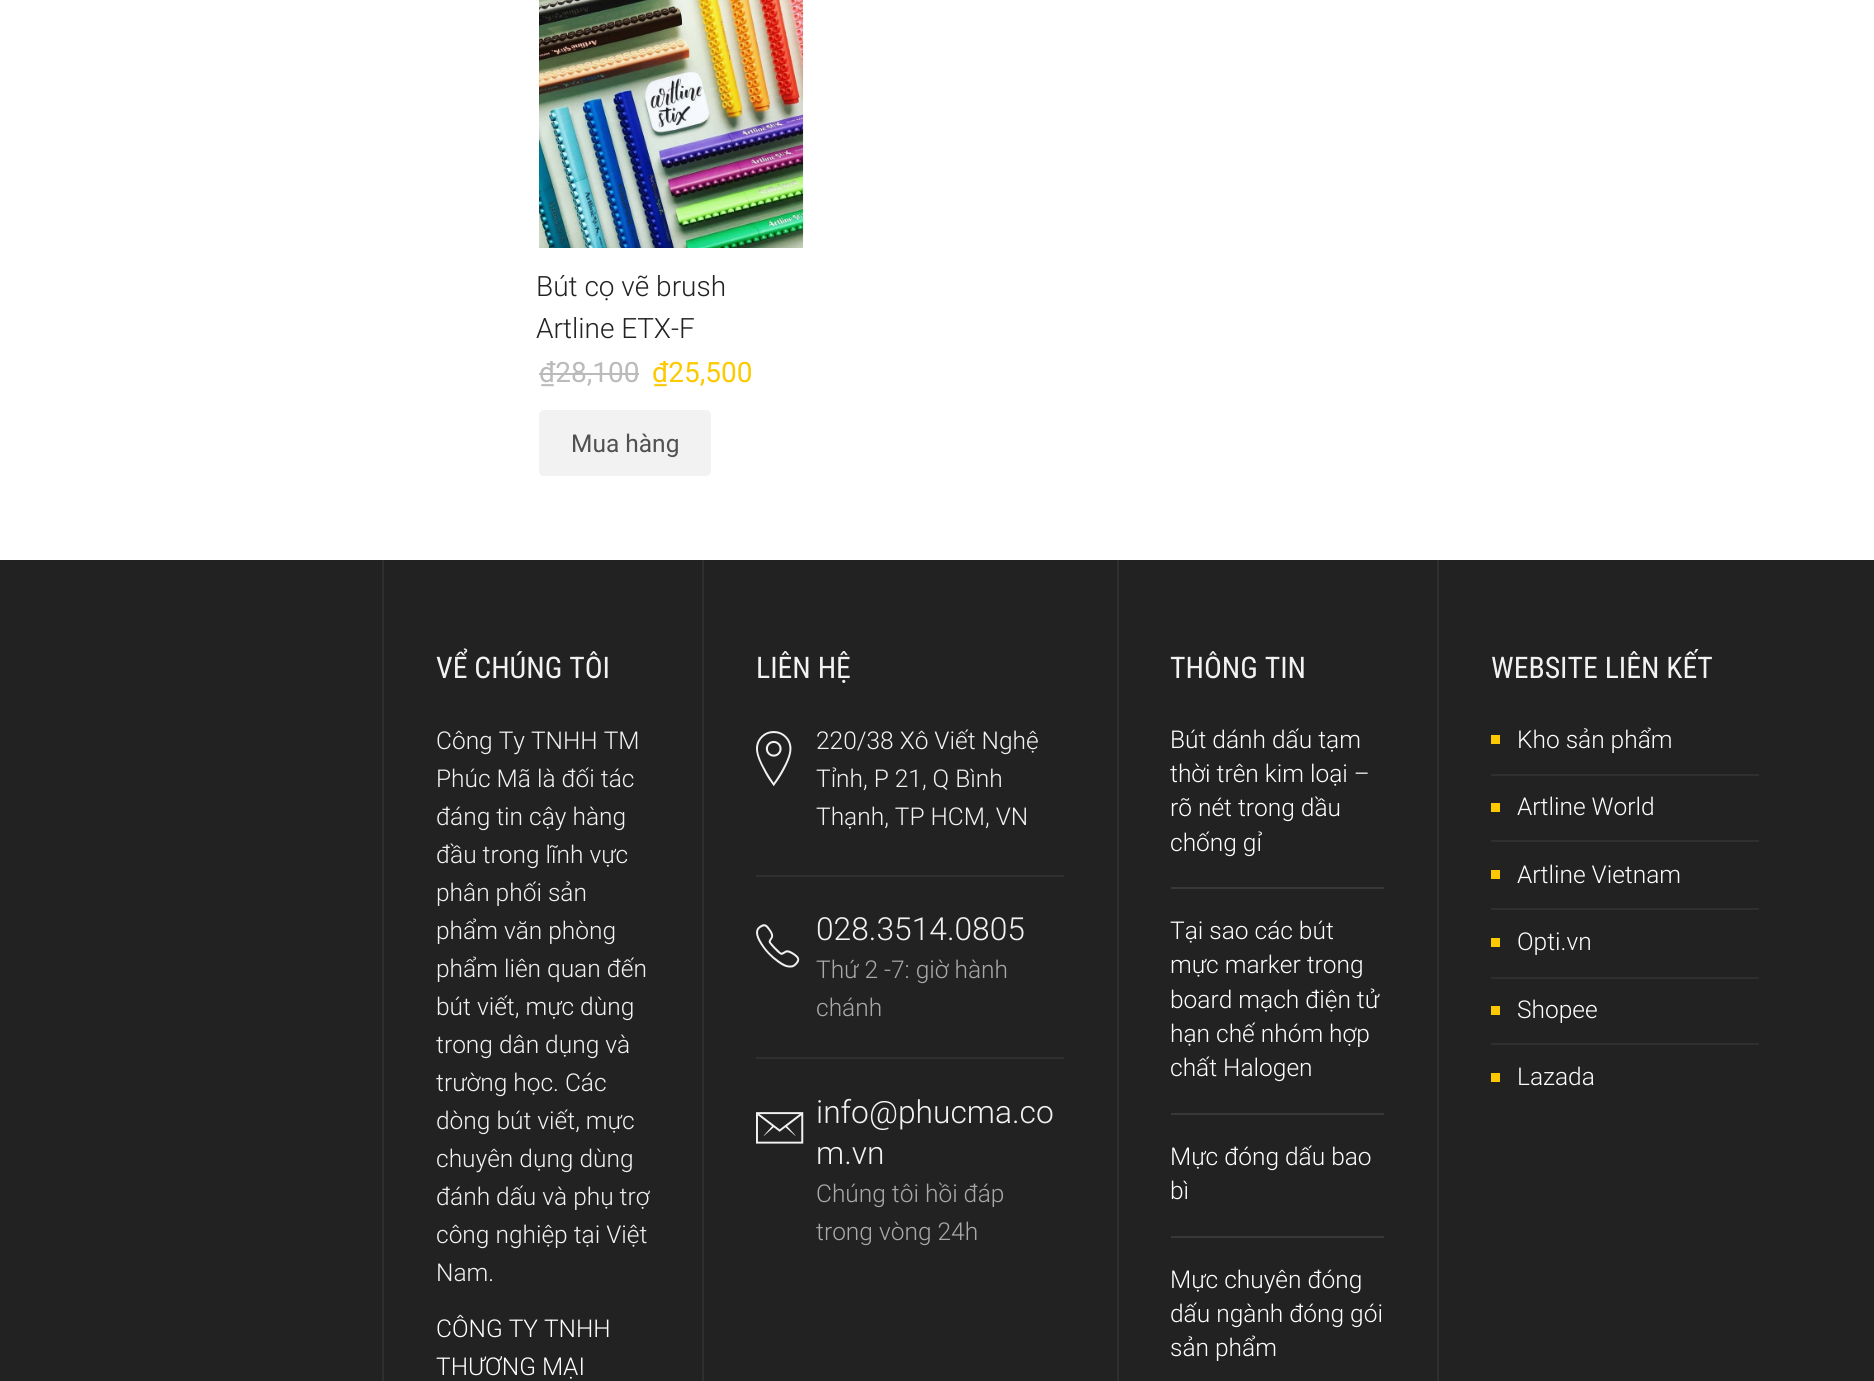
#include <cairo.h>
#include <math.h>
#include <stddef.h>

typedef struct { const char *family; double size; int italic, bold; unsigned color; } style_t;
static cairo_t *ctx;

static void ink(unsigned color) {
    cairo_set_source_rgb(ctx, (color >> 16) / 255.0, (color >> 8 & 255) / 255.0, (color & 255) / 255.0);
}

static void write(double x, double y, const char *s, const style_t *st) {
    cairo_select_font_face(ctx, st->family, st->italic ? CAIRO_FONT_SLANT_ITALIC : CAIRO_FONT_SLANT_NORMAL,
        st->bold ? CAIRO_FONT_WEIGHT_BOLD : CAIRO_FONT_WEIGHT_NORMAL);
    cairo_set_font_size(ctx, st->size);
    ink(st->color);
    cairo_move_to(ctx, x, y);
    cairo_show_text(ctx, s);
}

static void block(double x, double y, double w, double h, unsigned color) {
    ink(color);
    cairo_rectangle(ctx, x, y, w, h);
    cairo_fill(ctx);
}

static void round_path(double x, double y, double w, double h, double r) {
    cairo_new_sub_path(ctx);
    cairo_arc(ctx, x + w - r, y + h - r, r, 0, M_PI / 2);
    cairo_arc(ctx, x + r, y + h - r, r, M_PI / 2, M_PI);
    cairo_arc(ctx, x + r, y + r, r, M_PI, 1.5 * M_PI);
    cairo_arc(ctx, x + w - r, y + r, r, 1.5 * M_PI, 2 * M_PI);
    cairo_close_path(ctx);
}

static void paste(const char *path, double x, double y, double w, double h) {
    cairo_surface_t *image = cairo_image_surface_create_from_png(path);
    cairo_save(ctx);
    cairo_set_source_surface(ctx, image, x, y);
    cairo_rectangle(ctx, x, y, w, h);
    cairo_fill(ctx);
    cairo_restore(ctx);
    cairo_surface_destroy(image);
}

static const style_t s1 = {"Roboto Light", 28, 0, 0, 0x222222};
static const style_t s2 = {"Roboto", 28, 0, 0, 0xbbbbbb};
static const style_t s3 = {"Roboto", 28, 0, 0, 0xfdc900};
static const style_t s4 = {"Roboto", 24.5, 0, 0, 0x515151};
static const style_t s5 = {"Roboto Condensed", 29.75, 0, 0, 0xf2f2f2};
static const style_t s6 = {"Roboto Light", 24.5, 0, 0, 0xf2f2f2};
static const style_t s7 = {"Roboto Light", 24.5, 0, 0, 0xffffff};
static const style_t s8 = {"Roboto Light", 31.75, 0, 0, 0xf2f2f2};
static const style_t s9 = {"Roboto Light", 24.5, 0, 0, 0xa9a9a9};

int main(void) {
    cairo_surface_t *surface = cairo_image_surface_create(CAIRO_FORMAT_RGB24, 1874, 1381);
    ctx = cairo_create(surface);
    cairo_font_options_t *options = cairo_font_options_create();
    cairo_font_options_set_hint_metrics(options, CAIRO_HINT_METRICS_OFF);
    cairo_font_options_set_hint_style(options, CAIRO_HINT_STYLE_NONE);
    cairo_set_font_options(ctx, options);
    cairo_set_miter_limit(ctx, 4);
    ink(0xffffff);
    cairo_paint(ctx);
    paste("pic1.png", 539, 0, 265, 248);
    write(536, 296, "Bút cọ vẽ brush", &s1);
    write(536, 338, "Artline ETX-F", &s1);
    write(539, 382, "₫28,100", &s2);
    block(539, 373, 100, 2, 0xbbbbbb);
    write(652, 382, "₫25,500", &s3);
    ink(0xf2f2f2);
    round_path(539, 410, 172, 66, 5);
    cairo_fill(ctx);
    write(571, 452, "Mua hàng", &s4);
    block(0, 560, 1874, 821, 0x222222);
    block(382, 560, 2, 821, 0x2f2f2f);
    block(702, 560, 2, 821, 0x2f2f2f);
    write(436, 678, "VỂ CHÚNG TÔI", &s5);
    write(436, 749, "Công Ty TNHH TM", &s6);
    write(436, 787, "Phúc Mã là đối tác", &s6);
    write(436, 825, "đáng tin cậy hàng", &s6);
    write(436, 863, "đầu trong lĩnh vực", &s6);
    write(436, 901, "phân phối sản", &s6);
    write(436, 939, "phẩm văn phòng", &s6);
    write(436, 977, "phẩm liên quan đến", &s6);
    write(436, 1015, "bút viết, mực dùng", &s6);
    write(436, 1053, "trong dân dụng và", &s6);
    write(436, 1091, "trường học. Các", &s6);
    write(436, 1129, "dòng bút viết, mực", &s6);
    write(436, 1167, "chuyên dụng dùng", &s6);
    write(436, 1205, "đánh dấu và phụ trợ", &s6);
    write(436, 1243, "công nghiệp tại Việt", &s6);
    write(436, 1281, "Nam.", &s6);
    write(436, 1337, "CÔNG TY TNHH", &s7);
    write(436, 1375, "THƯƠNG MẠI", &s7);
    block(1117, 560, 2, 821, 0x2f2f2f);
    write(756, 678, "LIÊN HỆ", &s5);
    paste("pic2.png", 756, 731, 36, 56);
    write(816, 749, "220/38 Xô Viết Nghệ", &s6);
    write(816, 787, "Tỉnh, P 21, Q Bình", &s6);
    write(816, 825, "Thạnh, TP HCM, VN", &s6);
    block(756, 875, 308, 2, 0x2f2f2f);
    paste("pic3.png", 756, 924, 44, 44);
    write(816, 940, "028.3514.0805", &s8);
    write(816, 978, "Thứ 2 -7: giờ hành", &s9);
    write(816, 1016, "chánh", &s9);
    block(756, 1057, 308, 2, 0x2f2f2f);
    paste("pic4.png", 756, 1112, 48, 32);
    write(816, 1123, "info@phucma.co", &s8);
    write(816, 1164, "m.vn", &s8);
    write(816, 1202, "Chúng tôi hồi đáp", &s9);
    write(816, 1240, "trong vòng 24h", &s9);
    block(1437, 560, 2, 821, 0x2f2f2f);
    write(1170, 678, "THÔNG TIN", &s5);
    block(1171, 887, 213, 2, 0x383838);
    write(1170, 748, "Bút dánh dấu tạm", &s7);
    write(1170, 782, "thời trên kim loại –", &s7);
    write(1170, 816, "rõ nét trong dầu", &s7);
    write(1170, 851, "chống gỉ", &s7);
    block(1171, 1113, 213, 2, 0x383838);
    write(1170, 939, "Tại sao các bút", &s7);
    write(1170, 973, "mực marker trong", &s7);
    write(1170, 1008, "board mạch điện tử", &s7);
    write(1170, 1042, "hạn chế nhóm hợp", &s7);
    write(1170, 1076, "chất Halogen", &s7);
    block(1171, 1236, 213, 2, 0x383838);
    write(1170, 1165, "Mực đóng dấu bao", &s7);
    write(1170, 1199, "bì", &s7);
    write(1170, 1288, "Mực chuyên đóng", &s7);
    write(1170, 1322, "dấu ngành đóng gói", &s7);
    write(1170, 1356, "sản phẩm", &s7);
    write(1491, 678, "WEBSITE LIÊN KẾT", &s5);
    block(1491, 774, 268, 2, 0x2f2f2f);
    block(1491, 735, 9, 9, 0xfdc900);
    write(1517, 748, "Kho sản phẩm", &s7);
    block(1491, 840, 268, 2, 0x2f2f2f);
    block(1491, 803, 9, 9, 0xfdc900);
    write(1517, 815, "Artline World", &s7);
    block(1491, 908, 268, 2, 0x2f2f2f);
    block(1491, 870, 9, 9, 0xfdc900);
    write(1517, 883, "Artline Vietnam", &s7);
    block(1491, 977, 268, 2, 0x2f2f2f);
    block(1491, 938, 9, 9, 0xfdc900);
    write(1517, 950, "Opti.vn", &s7);
    block(1491, 1043, 268, 2, 0x2f2f2f);
    block(1491, 1006, 9, 9, 0xfdc900);
    write(1517, 1018, "Shopee", &s7);
    block(1491, 1073, 9, 9, 0xfdc900);
    write(1517, 1085, "Lazada", &s7);
    cairo_surface_write_to_png(surface, "screenshot.png");
    cairo_font_options_destroy(options);
    cairo_destroy(ctx);
    cairo_surface_destroy(surface);
    return 0;
}
